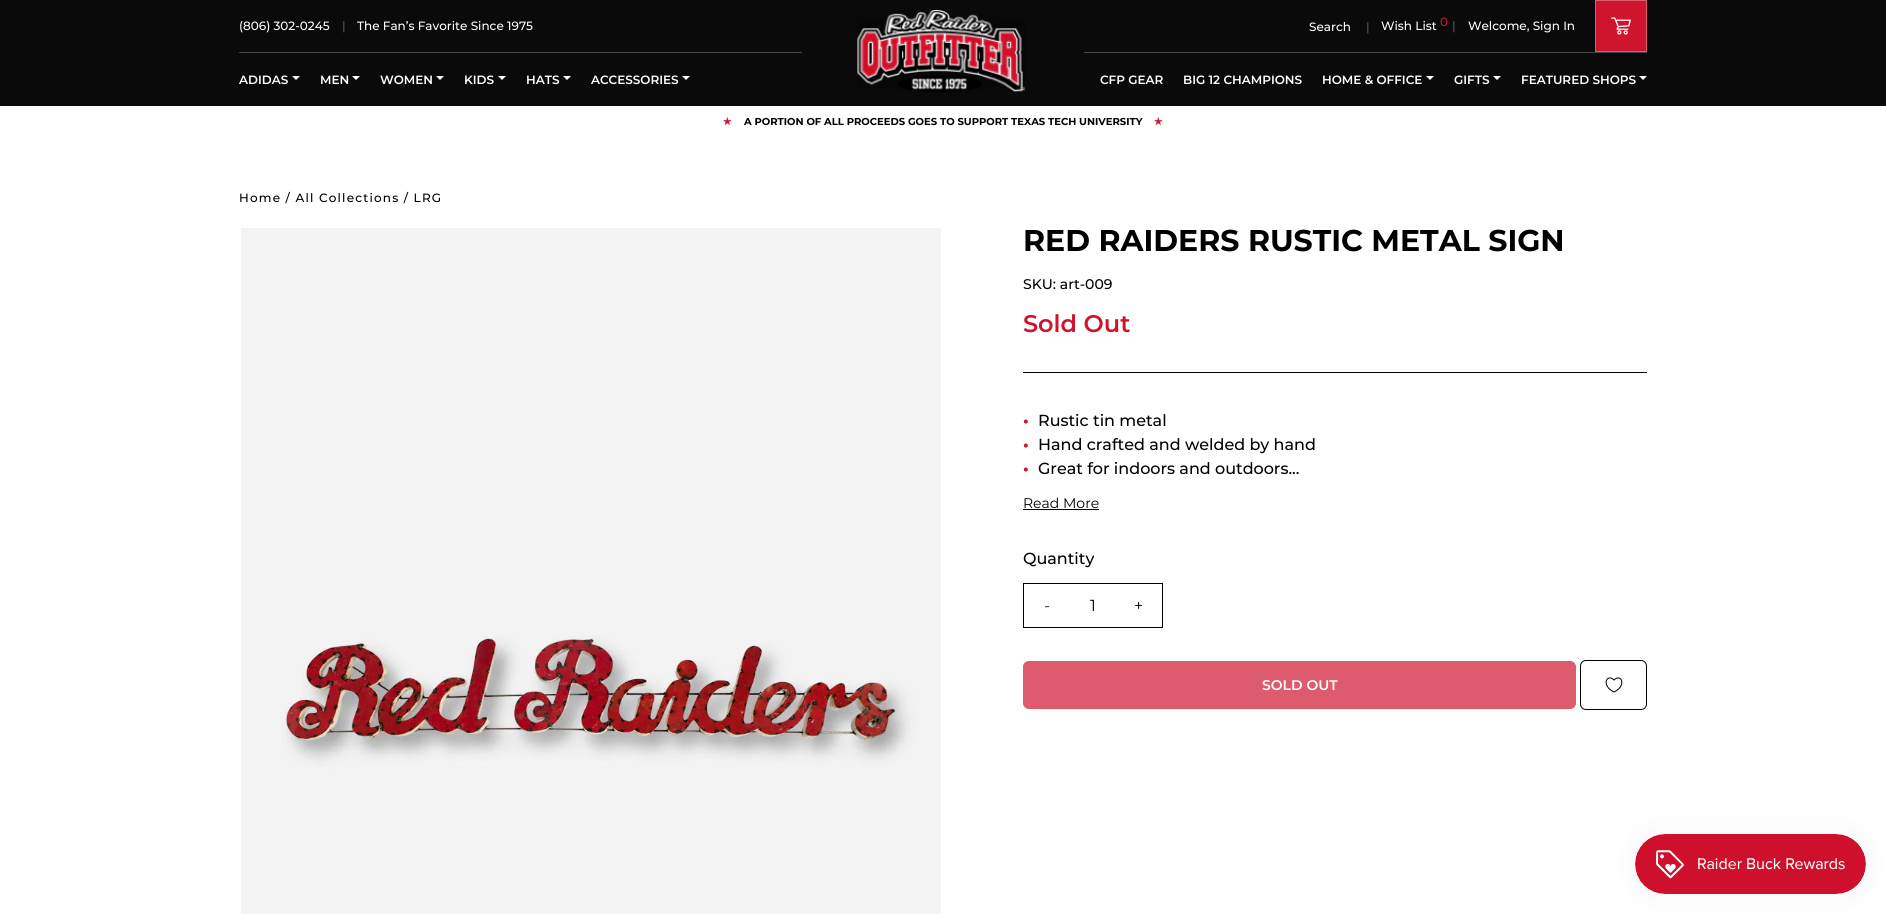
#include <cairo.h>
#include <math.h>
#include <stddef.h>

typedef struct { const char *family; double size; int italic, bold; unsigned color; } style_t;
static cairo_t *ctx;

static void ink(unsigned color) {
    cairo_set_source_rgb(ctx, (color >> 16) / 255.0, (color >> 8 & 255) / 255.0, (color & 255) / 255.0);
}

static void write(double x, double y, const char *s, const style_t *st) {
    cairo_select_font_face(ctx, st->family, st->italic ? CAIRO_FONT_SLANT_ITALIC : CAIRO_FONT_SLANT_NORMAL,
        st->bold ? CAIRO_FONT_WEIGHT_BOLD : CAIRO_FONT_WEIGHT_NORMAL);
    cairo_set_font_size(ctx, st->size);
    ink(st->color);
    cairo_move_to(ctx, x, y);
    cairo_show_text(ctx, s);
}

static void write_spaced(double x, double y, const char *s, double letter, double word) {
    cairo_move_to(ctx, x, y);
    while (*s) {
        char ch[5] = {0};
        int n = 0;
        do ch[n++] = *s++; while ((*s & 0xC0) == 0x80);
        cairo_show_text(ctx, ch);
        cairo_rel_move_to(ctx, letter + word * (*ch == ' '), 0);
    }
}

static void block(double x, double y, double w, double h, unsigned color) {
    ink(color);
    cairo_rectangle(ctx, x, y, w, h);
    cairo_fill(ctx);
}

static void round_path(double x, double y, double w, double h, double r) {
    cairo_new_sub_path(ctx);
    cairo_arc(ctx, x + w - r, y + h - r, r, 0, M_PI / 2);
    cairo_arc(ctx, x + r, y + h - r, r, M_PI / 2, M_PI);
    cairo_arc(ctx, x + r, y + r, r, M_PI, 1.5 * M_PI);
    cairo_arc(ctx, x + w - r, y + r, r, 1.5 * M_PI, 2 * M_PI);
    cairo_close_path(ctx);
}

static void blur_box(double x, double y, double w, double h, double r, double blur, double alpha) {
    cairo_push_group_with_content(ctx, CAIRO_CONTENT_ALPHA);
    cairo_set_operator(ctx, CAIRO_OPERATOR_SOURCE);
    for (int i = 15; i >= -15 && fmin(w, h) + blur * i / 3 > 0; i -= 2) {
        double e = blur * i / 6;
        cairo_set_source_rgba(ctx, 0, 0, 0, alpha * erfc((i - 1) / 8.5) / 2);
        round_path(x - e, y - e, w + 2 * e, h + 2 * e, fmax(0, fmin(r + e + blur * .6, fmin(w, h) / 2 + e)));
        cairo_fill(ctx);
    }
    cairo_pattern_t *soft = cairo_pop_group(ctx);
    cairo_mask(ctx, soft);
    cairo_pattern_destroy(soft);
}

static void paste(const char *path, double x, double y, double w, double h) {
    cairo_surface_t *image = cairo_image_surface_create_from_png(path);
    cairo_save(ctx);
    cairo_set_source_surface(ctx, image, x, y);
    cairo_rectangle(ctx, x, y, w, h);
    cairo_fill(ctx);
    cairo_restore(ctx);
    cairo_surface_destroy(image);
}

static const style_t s1 = {"Montserrat Medium", 12, 0, 0, 0xffffff};
static const style_t s2 = {"Montserrat Medium", 12, 0, 0, 0x545454};
static const style_t s3 = {"Montserrat SemiBold", 12, 0, 0, 0xffffff};
static const style_t s4 = {"Montserrat Medium", 12, 0, 0, 0xcf152d};
static const style_t s5 = {"DejaVu Sans", 10, 0, 1, 0xcf152d};
static const style_t s6 = {"Montserrat", 10, 0, 1, 0x000000};
static const style_t s7 = {"Montserrat", 30, 0, 1, 0x000000};
static const style_t s8 = {"Montserrat Medium", 14, 0, 0, 0x000000};
static const style_t s9 = {"Montserrat SemiBold", 24, 0, 0, 0xcf152d};
static const style_t s10 = {"Montserrat", 16, 0, 1, 0xcf152d};
static const style_t s11 = {"Montserrat Medium", 16, 0, 0, 0x000000};
static const style_t s12 = {"Montserrat", 14, 0, 0, 0x000000};
static const style_t s13 = {"Montserrat", 16, 0, 0, 0x333333};
static const style_t s14 = {"Montserrat", 16, 0, 0, 0x000000};
static const style_t s15 = {"Montserrat SemiBold", 14, 0, 0, 0xffffff};

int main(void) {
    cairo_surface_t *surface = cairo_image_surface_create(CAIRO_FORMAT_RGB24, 1886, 914);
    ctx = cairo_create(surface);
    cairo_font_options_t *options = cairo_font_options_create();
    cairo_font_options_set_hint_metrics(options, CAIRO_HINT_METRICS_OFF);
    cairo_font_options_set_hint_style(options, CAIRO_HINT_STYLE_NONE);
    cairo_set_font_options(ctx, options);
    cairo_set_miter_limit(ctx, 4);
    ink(0xffffff);
    cairo_paint(ctx);
    block(0, 0, 1886, 106, 0x0a0a0a);
    block(239, 52, 563, 1, 0x454545);
    write(239, 30, "(806) 302-0245", &s1);
    write(342, 30, "|", &s2);
    write(357, 30, "The Fan’s Favorite Since 1975", &s1);
    write(239, 84, "ADIDAS", &s3);
    cairo_new_path(ctx);
    cairo_move_to(ctx, 292, 76);
    cairo_line_to(ctx, 300, 76);
    cairo_line_to(ctx, 296, 80);
    cairo_close_path(ctx);
    cairo_fill(ctx);
    write(320, 84, "MEN", &s3);
    cairo_new_path(ctx);
    cairo_move_to(ctx, 352, 76);
    cairo_line_to(ctx, 360, 76);
    cairo_line_to(ctx, 356, 80);
    cairo_close_path(ctx);
    cairo_fill(ctx);
    write(380, 84, "WOMEN", &s3);
    cairo_new_path(ctx);
    cairo_move_to(ctx, 436, 76);
    cairo_line_to(ctx, 444, 76);
    cairo_line_to(ctx, 440, 80);
    cairo_close_path(ctx);
    cairo_fill(ctx);
    write(464, 84, "KIDS", &s3);
    cairo_new_path(ctx);
    cairo_move_to(ctx, 498, 76);
    cairo_line_to(ctx, 506, 76);
    cairo_line_to(ctx, 502, 80);
    cairo_close_path(ctx);
    cairo_fill(ctx);
    write(526, 84, "HATS", &s3);
    cairo_new_path(ctx);
    cairo_move_to(ctx, 563, 76);
    cairo_line_to(ctx, 571, 76);
    cairo_line_to(ctx, 567, 80);
    cairo_close_path(ctx);
    cairo_fill(ctx);
    write(591, 84, "ACCESSORIES", &s3);
    cairo_new_path(ctx);
    cairo_move_to(ctx, 682, 76);
    cairo_line_to(ctx, 690, 76);
    cairo_line_to(ctx, 686, 80);
    cairo_close_path(ctx);
    cairo_fill(ctx);
    paste("pic1.png", 857, 10, 168, 82);
    block(1084, 52, 563, 1, 0x454545);
    write(1309, 31, "Search", &s1);
    write(1366, 31, "|", &s2);
    write(1381, 30, "Wish List", &s1);
    write(1440, 26, "0", &s4);
    write(1452, 30, "|", &s2);
    write(1468, 30, "Welcome, Sign In", &s1);
    ink(0xcf152d);
    cairo_rectangle(ctx, 1595.5, 0.5, 51, 51);
    cairo_fill_preserve(ctx);
    ink(0xdd5b6c);
    cairo_set_line_width(ctx, 1);
    cairo_stroke(ctx);
    paste("pic2.png", 1611, 17, 20, 18);
    write(1100, 84, "CFP GEAR", &s3);
    write(1183, 84, "BIG 12 CHAMPIONS", &s3);
    write(1322, 84, "HOME & OFFICE", &s3);
    cairo_new_path(ctx);
    cairo_move_to(ctx, 1426, 76);
    cairo_line_to(ctx, 1434, 76);
    cairo_line_to(ctx, 1430, 80);
    cairo_close_path(ctx);
    cairo_fill(ctx);
    write(1454, 84, "GIFTS", &s3);
    cairo_new_path(ctx);
    cairo_move_to(ctx, 1493, 76);
    cairo_line_to(ctx, 1501, 76);
    cairo_line_to(ctx, 1497, 80);
    cairo_close_path(ctx);
    cairo_fill(ctx);
    write(1521, 84, "FEATURED SHOPS", &s3);
    cairo_new_path(ctx);
    cairo_move_to(ctx, 1639, 76);
    cairo_line_to(ctx, 1647, 76);
    cairo_line_to(ctx, 1643, 80);
    cairo_close_path(ctx);
    cairo_fill(ctx);
    write(723, 125, "✭", &s5);
    write(744, 125, "A PORTION OF ALL PROCEEDS GOES TO SUPPORT TEXAS TECH UNIVERSITY", &s6);
    write(1154, 125, "✭", &s5);
    cairo_select_font_face(ctx, "Montserrat Medium", CAIRO_FONT_SLANT_NORMAL, CAIRO_FONT_WEIGHT_NORMAL);
    cairo_set_font_size(ctx, 12);
    ink(0x000000);
    write_spaced(239, 202, "Home / All Collections / LRG", 1.2, 0);
    paste("pic3.png", 241, 228, 700, 686);
    write(1023, 251, "RED RAIDERS RUSTIC METAL SIGN", &s7);
    write(1023, 289, "SKU: art-009", &s8);
    write(1023, 332, "Sold Out", &s9);
    block(1023, 372, 624, 1, 0x000000);
    write(1023, 426, "•", &s10);
    write(1038, 426, "Rustic tin metal", &s11);
    write(1023, 450, "•", &s10);
    write(1038, 450, "Hand crafted and welded by hand", &s11);
    write(1023, 474, "•", &s10);
    write(1038, 474, "Great for indoors and outdoors...", &s11);
    write(1023, 508, "Read More", &s12);
    block(1023, 509, 76, 1, 0x000000);
    write(1023, 564, "Quantity", &s11);
    cairo_rectangle(ctx, 1023.5, 583.5, 139, 44);
    cairo_stroke(ctx);
    write(1044, 611, "-", &s13);
    write(1090, 611, "1", &s14);
    write(1134, 611, "+", &s14);
    ink(0xdd5b6c);
    round_path(1023.5, 661.5, 552, 47, 5.5);
    cairo_fill_preserve(ctx);
    cairo_stroke(ctx);
    write(1262, 690, "SOLD OUT", &s15);
    round_path(1580.5, 660.5, 66, 49, 5.5);
    ink(0x000000);
    cairo_stroke(ctx);
    cairo_new_path(ctx);
    cairo_move_to(ctx, 1614, 692);
    cairo_curve_to(ctx, 1600.5, 685.5, 1607, 673, 1614, 680);
    cairo_curve_to(ctx, 1621, 673, 1627.5, 685.5, 1614, 692);
    cairo_close_path(ctx);
    cairo_stroke(ctx);
    ink(0x000000);
    blur_box(1635, 834, 231, 60, 30, 12.5, 0.05);
    paste("pic4.png", 1635, 834, 231, 60);
    cairo_surface_write_to_png(surface, "screenshot.png");
    cairo_font_options_destroy(options);
    cairo_destroy(ctx);
    cairo_surface_destroy(surface);
    return 0;
}
